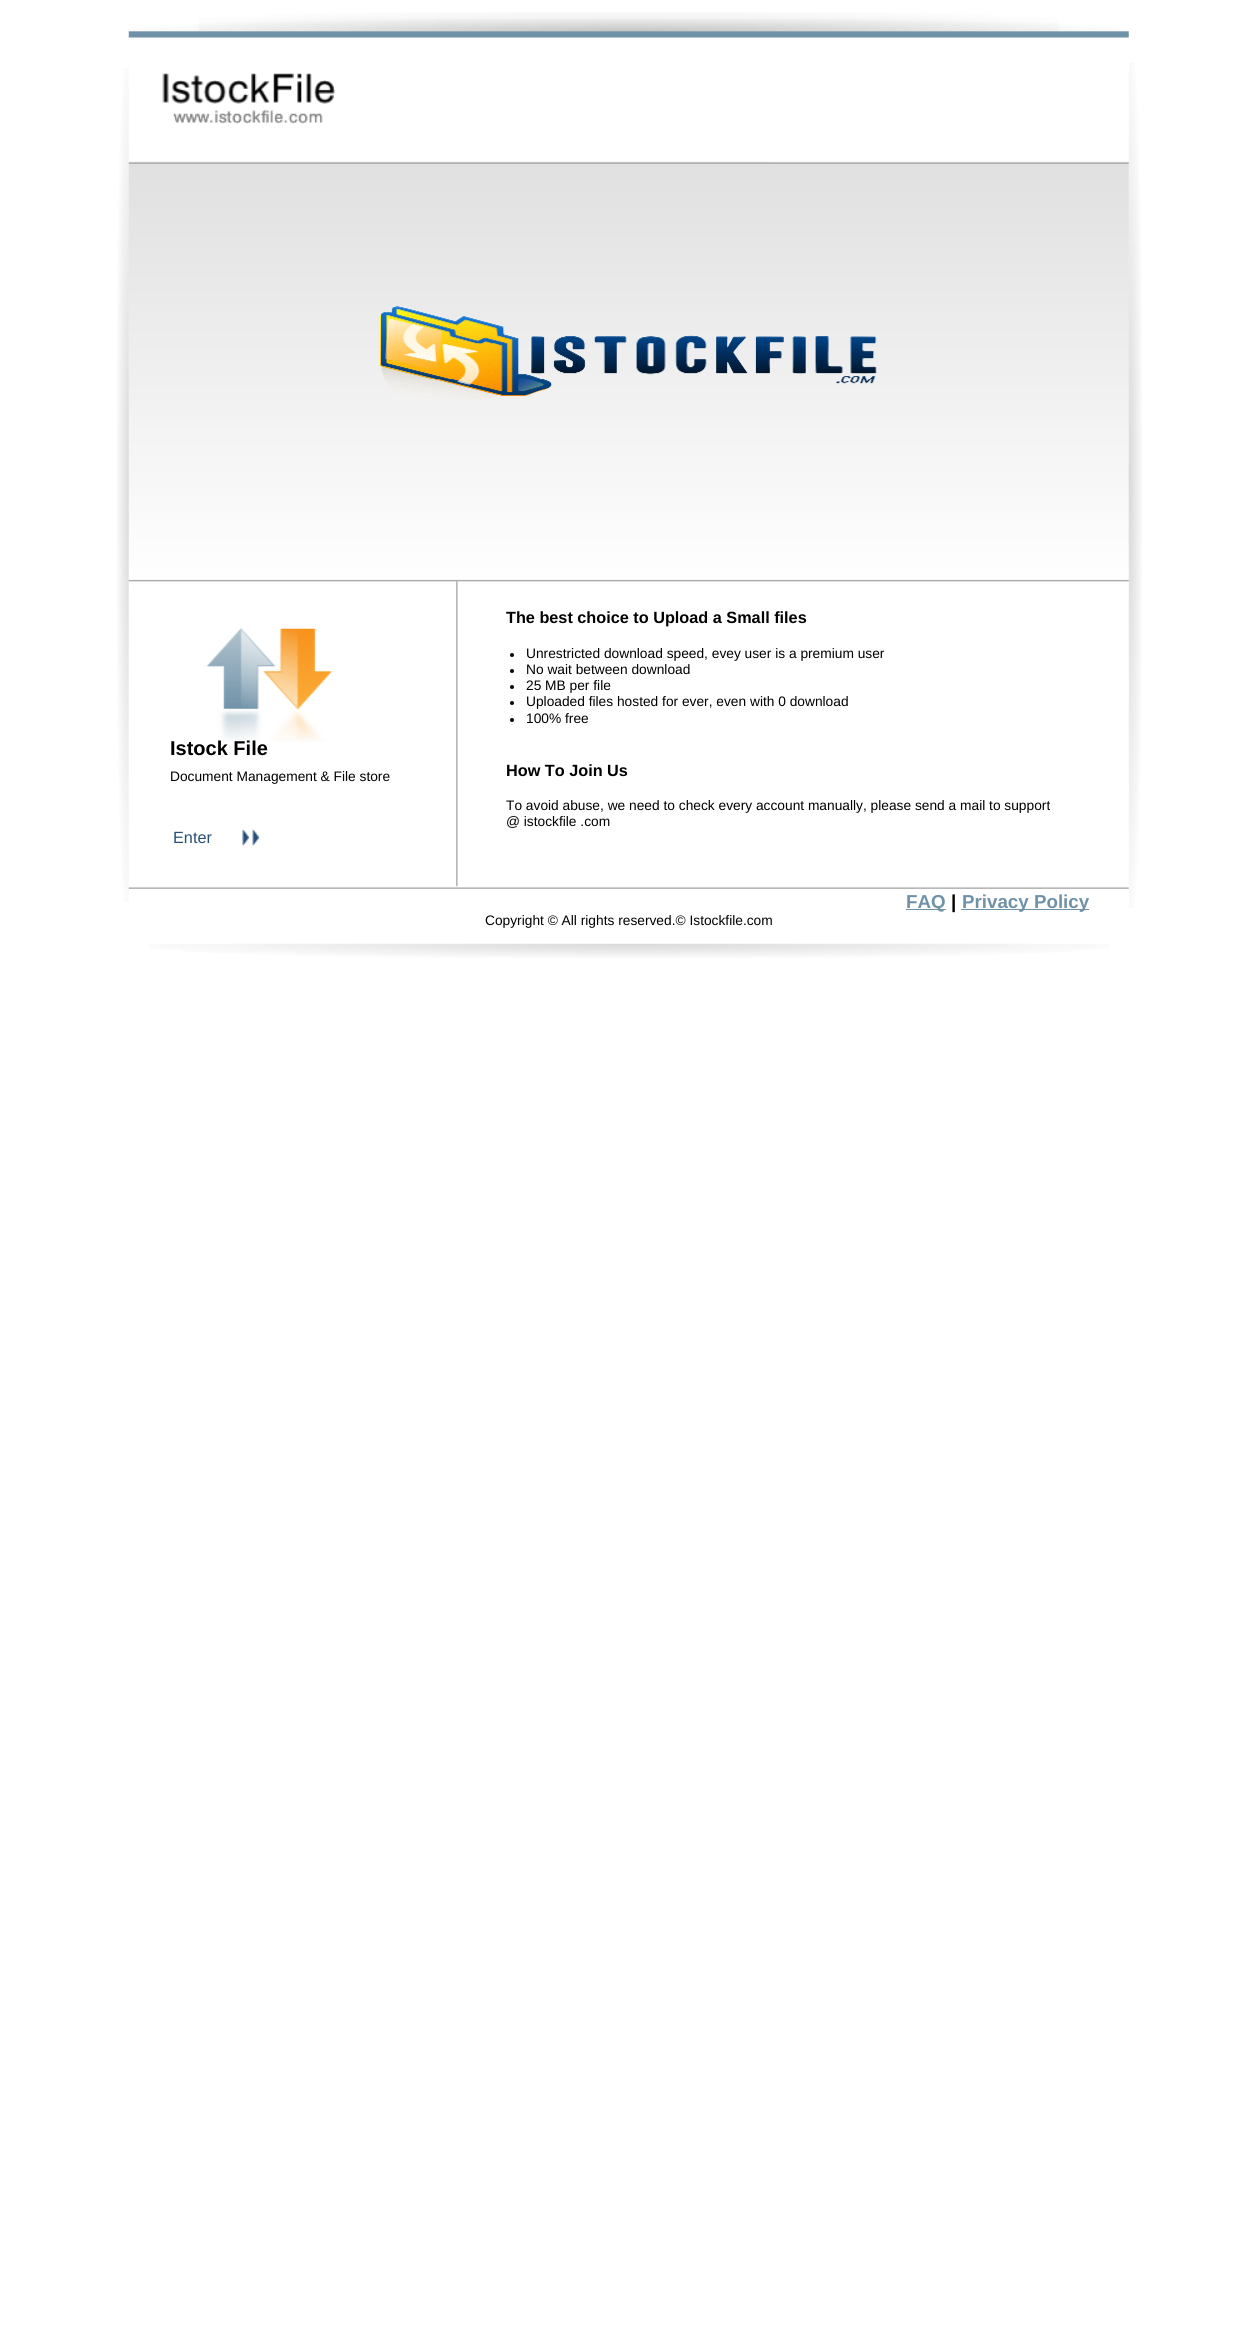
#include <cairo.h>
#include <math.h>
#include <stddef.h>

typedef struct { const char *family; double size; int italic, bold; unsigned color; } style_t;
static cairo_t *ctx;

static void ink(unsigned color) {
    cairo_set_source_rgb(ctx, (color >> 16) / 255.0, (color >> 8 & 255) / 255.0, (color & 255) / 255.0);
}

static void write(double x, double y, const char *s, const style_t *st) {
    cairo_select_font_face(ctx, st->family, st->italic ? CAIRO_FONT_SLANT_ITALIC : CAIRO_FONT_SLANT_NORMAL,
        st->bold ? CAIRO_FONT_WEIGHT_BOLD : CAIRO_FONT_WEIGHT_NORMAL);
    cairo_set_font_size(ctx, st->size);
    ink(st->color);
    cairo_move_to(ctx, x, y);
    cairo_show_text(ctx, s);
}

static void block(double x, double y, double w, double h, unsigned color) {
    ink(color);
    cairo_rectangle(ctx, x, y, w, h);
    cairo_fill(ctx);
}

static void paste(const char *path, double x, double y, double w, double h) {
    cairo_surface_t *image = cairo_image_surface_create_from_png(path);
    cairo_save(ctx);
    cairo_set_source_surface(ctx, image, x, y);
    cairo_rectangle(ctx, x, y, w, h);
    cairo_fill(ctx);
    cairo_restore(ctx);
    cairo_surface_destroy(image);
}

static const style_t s1 = {"Liberation Sans", 16.25, 0, 1, 0x000000};
static const style_t s2 = {"Liberation Sans", 13.75, 0, 0, 0x000000};
static const style_t s3 = {"Liberation Sans", 20, 0, 1, 0x000000};
static const style_t s4 = {"Liberation Sans", 16.25, 0, 0, 0x274f77};
static const style_t s5 = {"Liberation Sans", 18.75, 0, 1, 0x7092a8};
static const style_t s6 = {"Liberation Sans", 18.75, 0, 1, 0x000000};

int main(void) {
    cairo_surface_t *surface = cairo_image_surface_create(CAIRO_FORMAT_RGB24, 1257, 2347);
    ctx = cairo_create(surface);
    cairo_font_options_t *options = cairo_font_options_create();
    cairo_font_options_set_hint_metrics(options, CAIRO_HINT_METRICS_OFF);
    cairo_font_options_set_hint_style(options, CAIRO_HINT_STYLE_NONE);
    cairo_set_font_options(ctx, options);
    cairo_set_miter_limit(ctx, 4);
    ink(0xffffff);
    cairo_paint(ctx);
    paste("pic2.png", 128, 19, 1001, 19);
    paste("pic1.png", 199, 12, 860, 20);
    paste("pic7.png", 128, 161, 1001, 581);
    paste("pic3.png", 117, 68, 12, 834);
    paste("pic4.png", 162, 73, 174, 31);
    paste("pic8.png", 128, 162, 1001, 2);
    paste("pic12.png", 128, 887, 1001, 2);
    paste("pic5.png", 1128, 62, 14, 846);
    paste("pic6.png", 173, 110, 150, 14);
    paste("pic9.png", 380, 306, 497, 94);
    paste("pic10.png", 456, 581, 2, 306);
    write(506, 623, "The best choice to Upload a Small files", &s1);
    cairo_new_path(ctx);
    cairo_arc(ctx, 512, 655, 2, 0, 2 * M_PI);
    cairo_fill(ctx);
    write(526, 658, "Unrestricted download speed, evey user is a premium user", &s2);
    cairo_new_path(ctx);
    cairo_arc(ctx, 512, 671, 2, 0, 2 * M_PI);
    cairo_fill(ctx);
    write(526, 674, "No wait between download", &s2);
    cairo_new_path(ctx);
    cairo_arc(ctx, 512, 687, 2, 0, 2 * M_PI);
    cairo_fill(ctx);
    write(526, 690, "25 MB per file", &s2);
    cairo_new_path(ctx);
    cairo_arc(ctx, 512, 703, 2, 0, 2 * M_PI);
    cairo_fill(ctx);
    write(526, 706, "Uploaded files hosted for ever, even with 0 download", &s2);
    cairo_new_path(ctx);
    cairo_arc(ctx, 512, 720, 2, 0, 2 * M_PI);
    cairo_fill(ctx);
    write(526, 723, "100% free", &s2);
    write(170, 755, "Istock File", &s3);
    write(170, 781, "Document Management & File store", &s2);
    write(506, 776, "How To Join Us", &s1);
    write(506, 810, "To avoid abuse, we need to check every account manually, please send a mail to support", &s2);
    write(506, 826, "@ istockfile .com", &s2);
    paste("pic11.png", 242, 829, 18, 18);
    write(173, 843, "Enter", &s4);
    block(906, 909, 40, 1, 0x7092a8);
    write(906, 908, "FAQ", &s5);
    write(951, 908, "|", &s6);
    block(961, 909, 128, 1, 0x7092a8);
    write(962, 908, "Privacy Policy", &s5);
    write(485, 925, "Copyright © All rights reserved.© Istockfile.com", &s2);
    paste("pic13.png", 149, 943, 960, 15);
    cairo_surface_write_to_png(surface, "screenshot.png");
    cairo_font_options_destroy(options);
    cairo_destroy(ctx);
    cairo_surface_destroy(surface);
    return 0;
}
